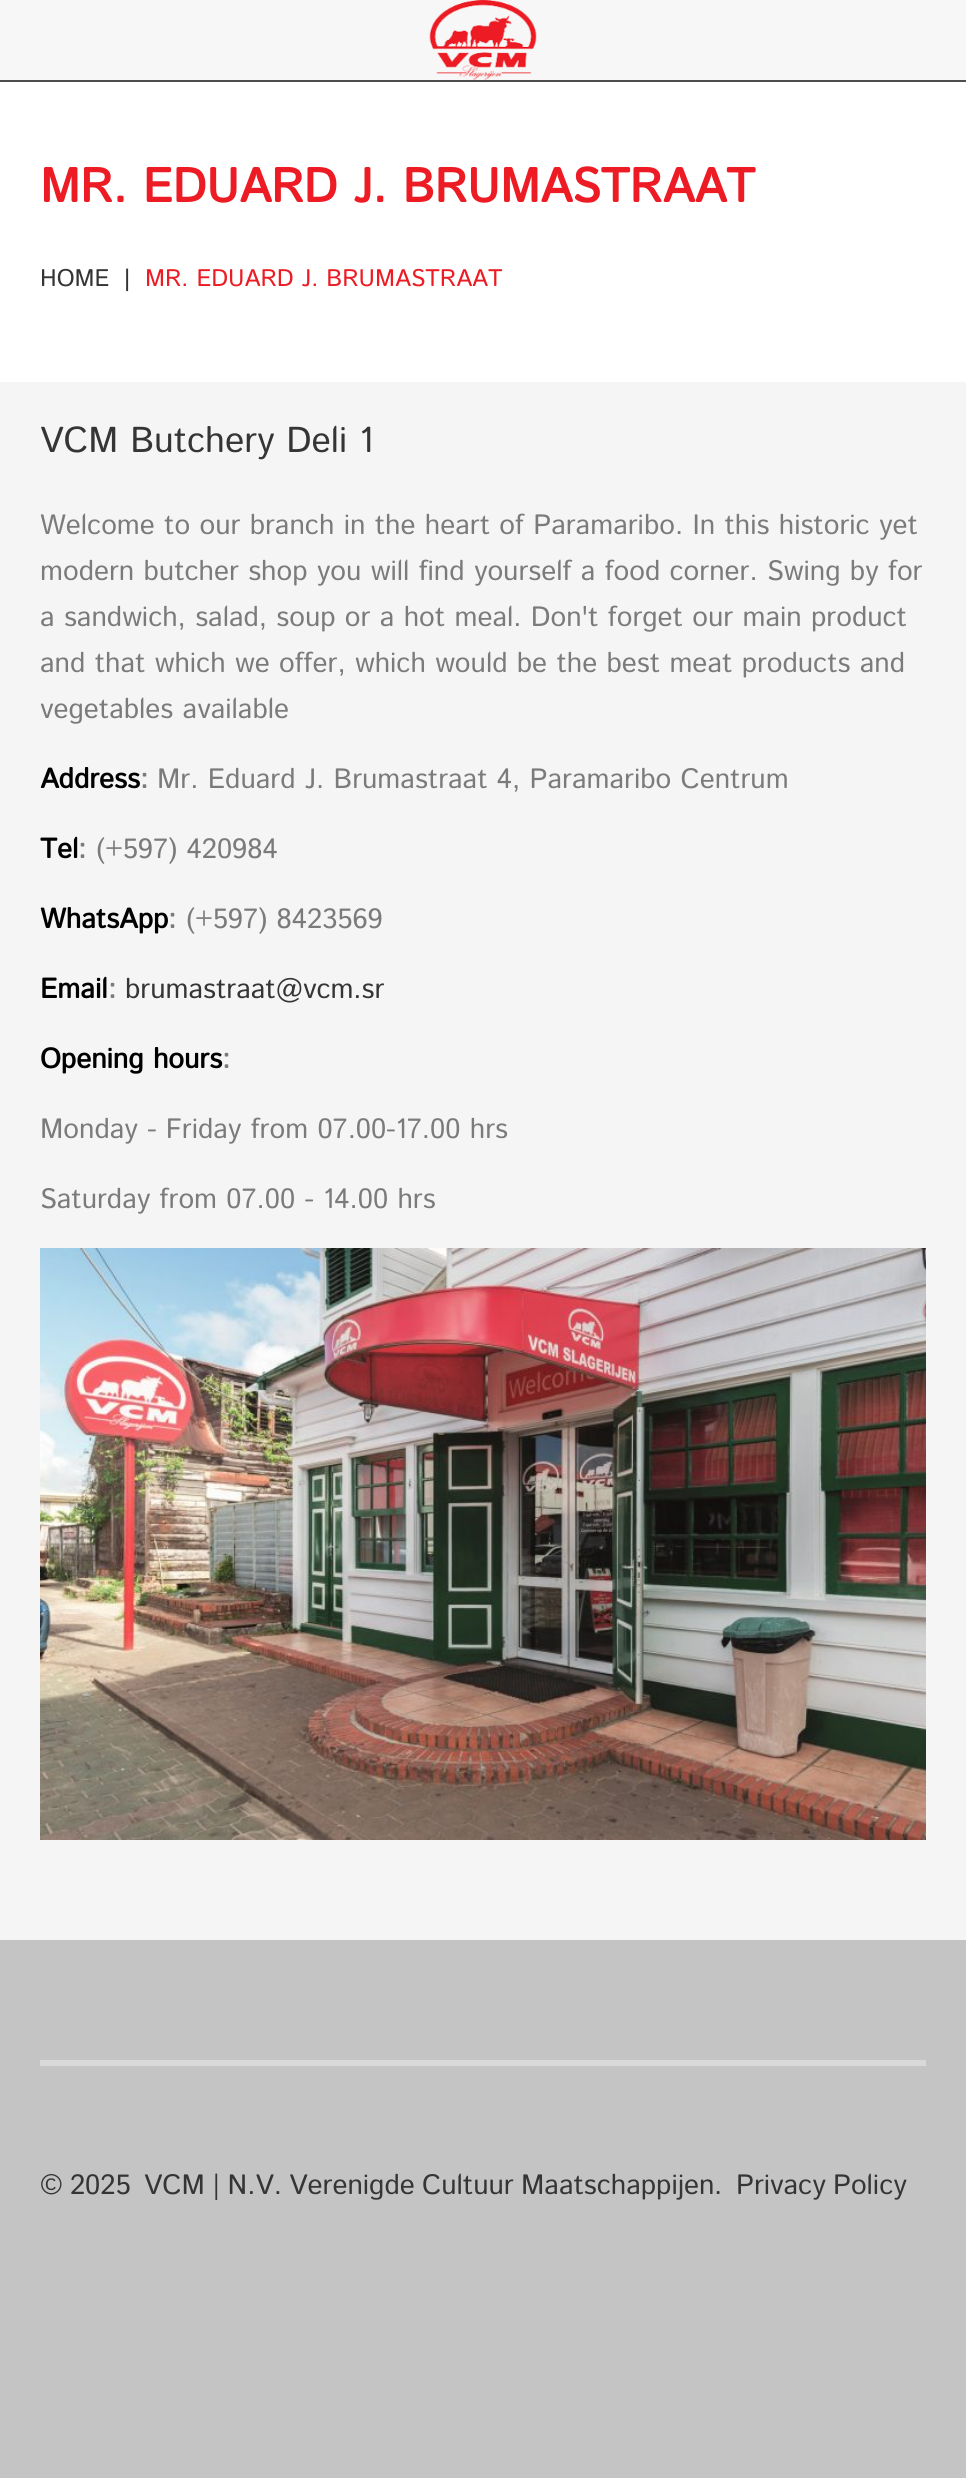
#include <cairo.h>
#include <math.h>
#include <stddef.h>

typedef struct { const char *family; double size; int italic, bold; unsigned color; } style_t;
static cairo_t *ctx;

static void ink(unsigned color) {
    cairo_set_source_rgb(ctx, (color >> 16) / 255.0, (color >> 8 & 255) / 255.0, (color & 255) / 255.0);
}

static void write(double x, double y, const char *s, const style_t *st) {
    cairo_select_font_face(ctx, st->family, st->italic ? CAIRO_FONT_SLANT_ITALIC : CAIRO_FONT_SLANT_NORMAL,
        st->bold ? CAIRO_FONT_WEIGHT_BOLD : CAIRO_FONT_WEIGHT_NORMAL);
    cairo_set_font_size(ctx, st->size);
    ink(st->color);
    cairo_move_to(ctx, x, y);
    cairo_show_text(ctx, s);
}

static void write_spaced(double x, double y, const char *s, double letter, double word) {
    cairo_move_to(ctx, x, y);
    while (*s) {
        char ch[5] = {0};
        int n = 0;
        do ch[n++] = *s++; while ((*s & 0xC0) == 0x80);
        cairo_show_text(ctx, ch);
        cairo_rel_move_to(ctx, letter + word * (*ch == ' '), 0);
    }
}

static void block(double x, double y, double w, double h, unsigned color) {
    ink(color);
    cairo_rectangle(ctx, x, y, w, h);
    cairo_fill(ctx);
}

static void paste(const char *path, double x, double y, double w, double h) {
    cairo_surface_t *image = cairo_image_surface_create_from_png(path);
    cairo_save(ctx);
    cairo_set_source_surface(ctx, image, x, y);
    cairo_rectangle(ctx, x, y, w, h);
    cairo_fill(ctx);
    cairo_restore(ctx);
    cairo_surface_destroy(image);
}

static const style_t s1 = {"Istok Web", 48, 0, 1, 0xed1b24};
static const style_t s2 = {"Istok Web", 24, 0, 0, 0x353535};
static const style_t s3 = {"Liberation Sans", 24, 0, 0, 0x353535};
static const style_t s4 = {"Istok Web", 24, 0, 0, 0xed1b24};
static const style_t s5 = {"Istok Web", 36, 0, 0, 0x353535};
static const style_t s6 = {"Istok Web", 28, 0, 0, 0x7b7b7b};
static const style_t s7 = {"Istok Web", 28, 0, 1, 0x000000};
static const style_t s8 = {"Istok Web", 28, 0, 1, 0x7b7b7b};
static const style_t s9 = {"Istok Web", 28, 0, 0, 0x353535};

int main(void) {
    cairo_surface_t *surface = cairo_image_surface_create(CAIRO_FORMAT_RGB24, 966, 2478);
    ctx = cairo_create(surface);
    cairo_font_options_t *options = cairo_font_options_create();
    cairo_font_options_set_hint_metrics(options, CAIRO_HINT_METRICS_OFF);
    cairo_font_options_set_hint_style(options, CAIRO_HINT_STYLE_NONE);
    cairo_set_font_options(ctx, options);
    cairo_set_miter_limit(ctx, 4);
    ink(0xc4c4c4);
    cairo_paint(ctx);
    block(0, 0, 966, 80, 0xf7f7f7);
    paste("pic1.png", 429, 0, 108, 80);
    block(0, 80, 966, 2, 0x4e4e4e);
    block(0, 382, 966, 1558, 0xf5f5f5);
    block(0, 82, 966, 300, 0xffffff);
    write(40, 202, "MR. EDUARD J. BRUMASTRAAT", &s1);
    write(40, 286, "HOME", &s2);
    write(124, 286, "|", &s3);
    write(145, 286, "MR. EDUARD J. BRUMASTRAAT", &s4);
    write(40, 452, "VCM Butchery Deli 1", &s5);
    write(40, 534, "Welcome to our branch in the heart of Paramaribo. In this historic yet", &s6);
    write(40, 580, "modern butcher shop you will find yourself a food corner. Swing by for", &s6);
    write(40, 626, "a sandwich, salad, soup or a hot meal. Don't forget our main product", &s6);
    write(40, 672, "and that which we offer, which would be the best meat products and", &s6);
    write(40, 718, "vegetables available", &s6);
    write(40, 788, "Address", &s7);
    write(140, 788, ":", &s8);
    write(157, 788, "Mr. Eduard J. Brumastraat 4, Paramaribo Centrum", &s6);
    write(40, 858, "Tel", &s7);
    write(78, 858, ":", &s8);
    write(96, 858, "(+597) 420984", &s6);
    write(40, 928, "WhatsApp", &s7);
    write(168, 928, ":", &s8);
    write(186, 928, "(+597) 8423569", &s6);
    write(40, 998, "Email", &s7);
    write(108, 998, ":", &s8);
    write(125, 998, "brumastraat@vcm.sr", &s9);
    write(40, 1068, "Opening hours", &s7);
    write(222, 1068, ":", &s8);
    write(40, 1138, "Monday - Friday from 07.00-17.00 hrs", &s6);
    write(40, 1208, "Saturday from 07.00 - 14.00 hrs", &s6);
    paste("pic2.png", 40, 1248, 886, 592);
    block(40, 2060, 886, 6, 0xd9d9d9);
    ink(0x353535);
    write_spaced(40, 2194, "© 2025", 0, -2);
    write_spaced(144, 2194, "VCM | N.V. Verenigde Cultuur Maatschappijen", 0, -2);
    write(714, 2194, ".", &s9);
    write_spaced(736, 2194, "Privacy Policy", 0, -2);
    cairo_surface_write_to_png(surface, "screenshot.png");
    cairo_font_options_destroy(options);
    cairo_destroy(ctx);
    cairo_surface_destroy(surface);
    return 0;
}
